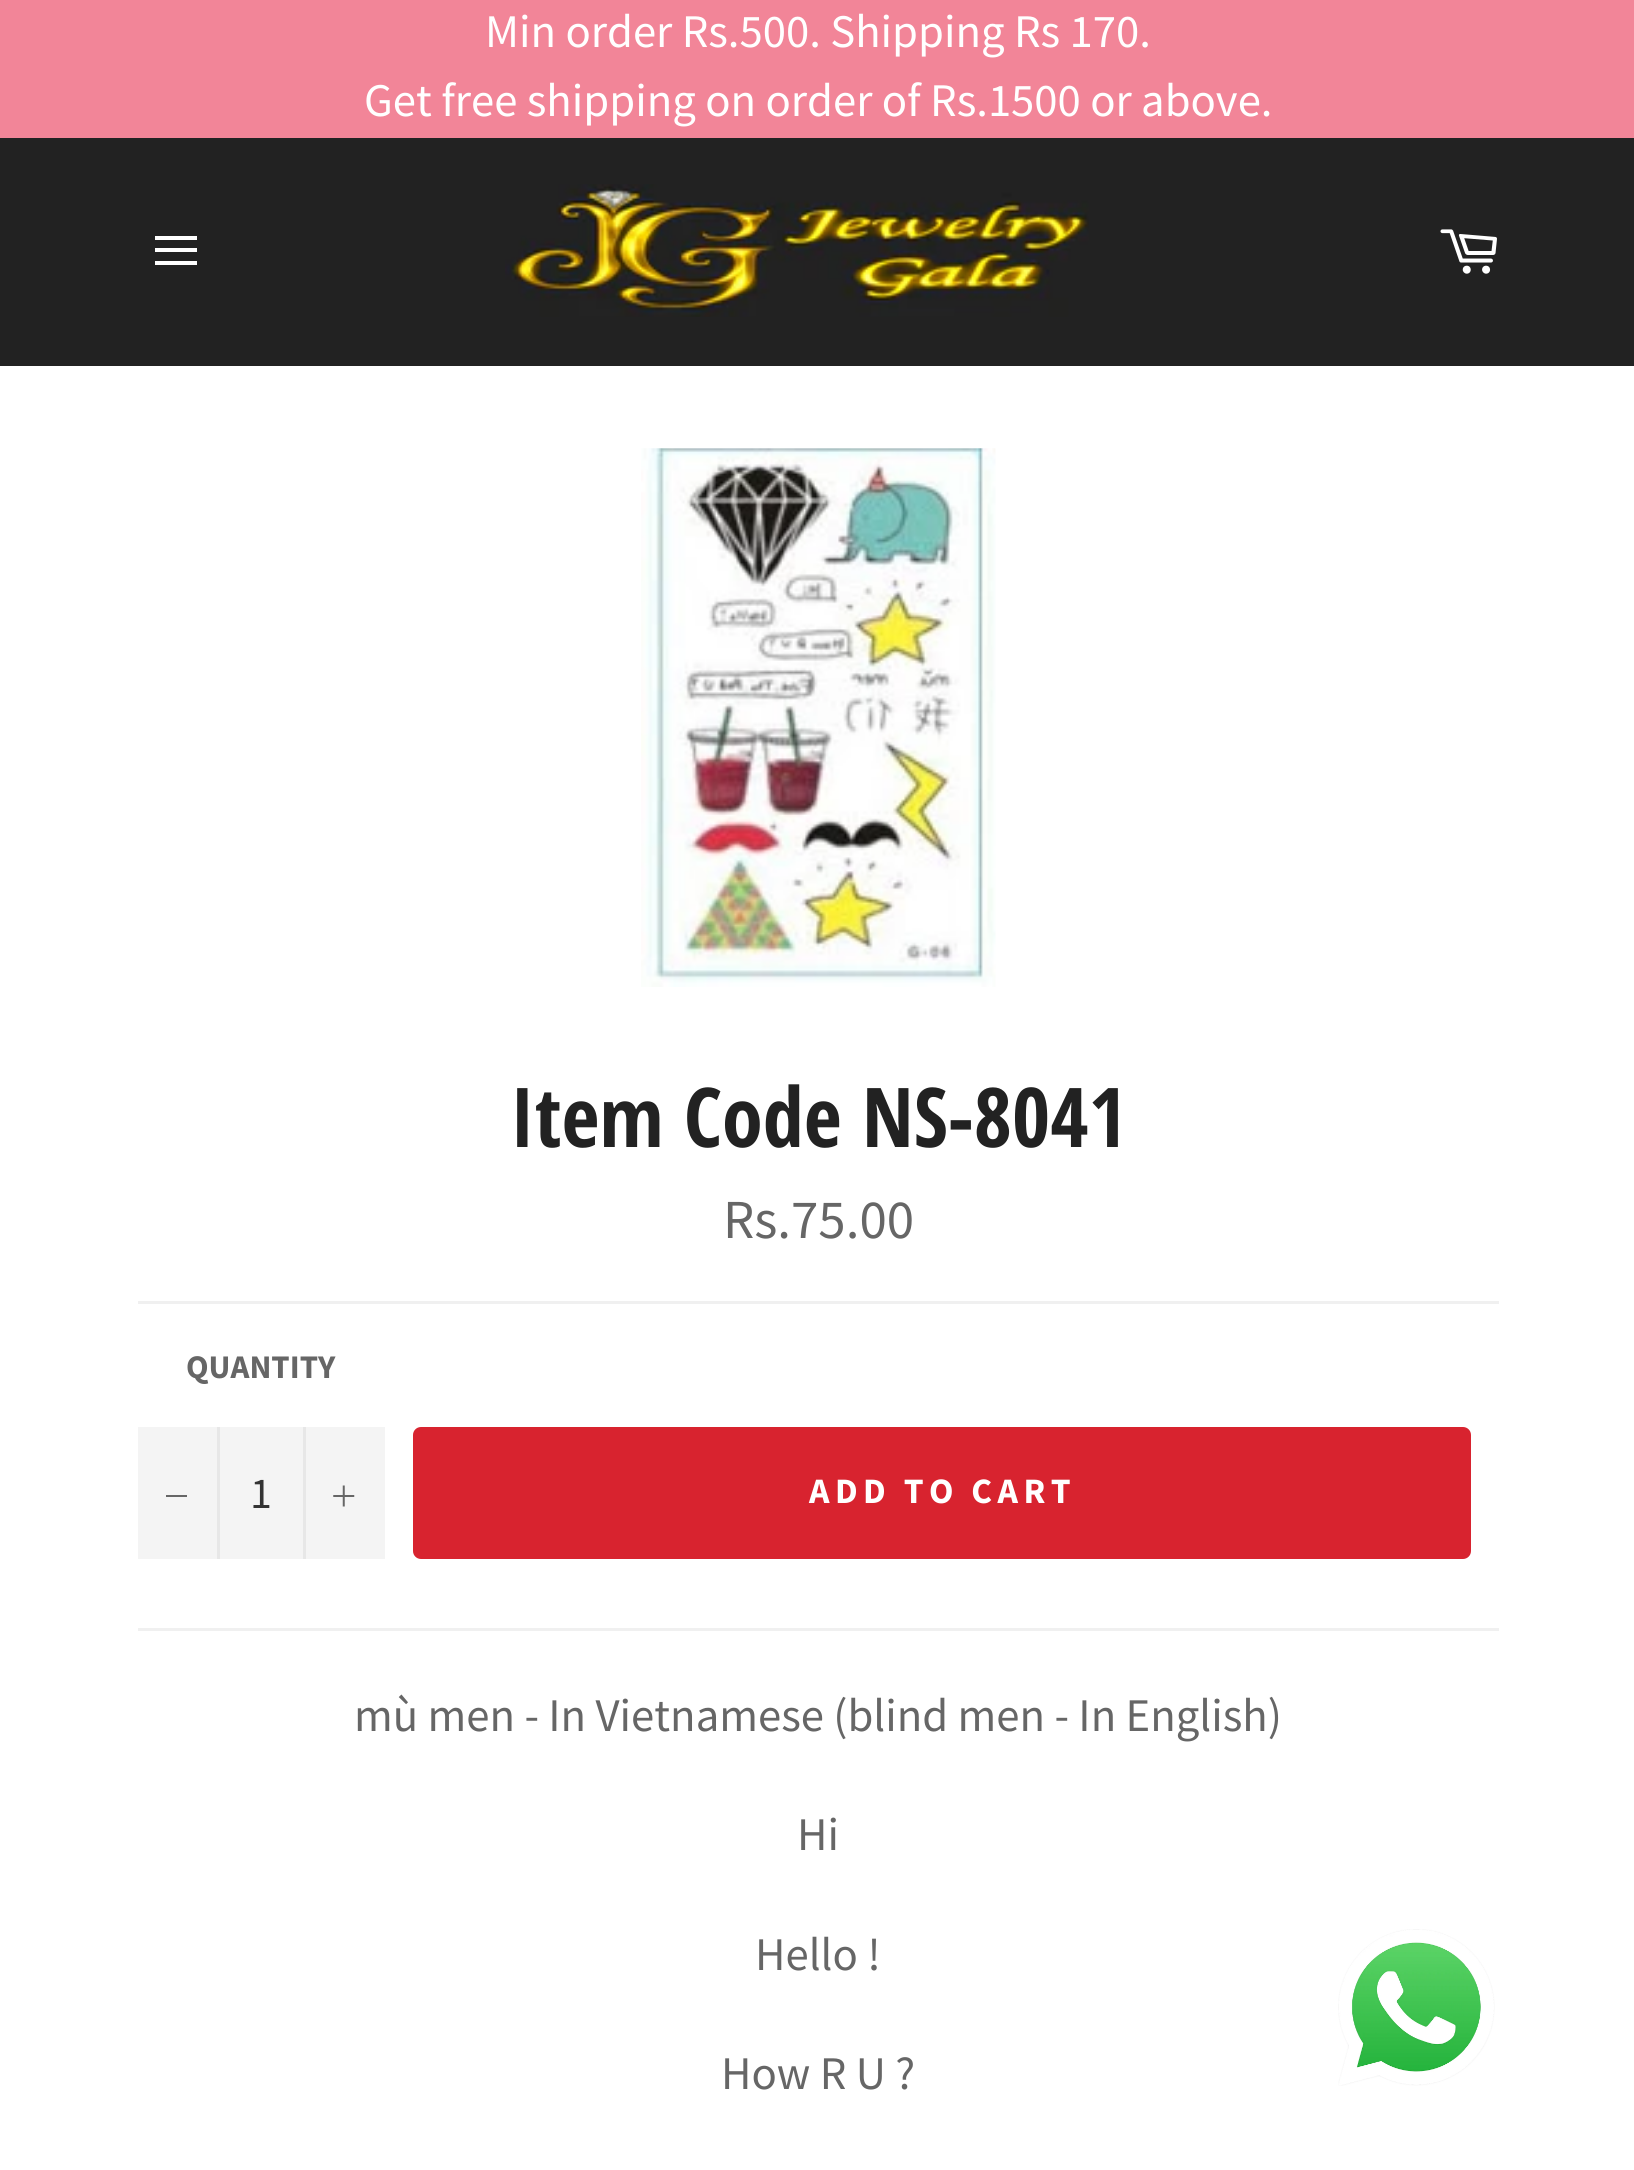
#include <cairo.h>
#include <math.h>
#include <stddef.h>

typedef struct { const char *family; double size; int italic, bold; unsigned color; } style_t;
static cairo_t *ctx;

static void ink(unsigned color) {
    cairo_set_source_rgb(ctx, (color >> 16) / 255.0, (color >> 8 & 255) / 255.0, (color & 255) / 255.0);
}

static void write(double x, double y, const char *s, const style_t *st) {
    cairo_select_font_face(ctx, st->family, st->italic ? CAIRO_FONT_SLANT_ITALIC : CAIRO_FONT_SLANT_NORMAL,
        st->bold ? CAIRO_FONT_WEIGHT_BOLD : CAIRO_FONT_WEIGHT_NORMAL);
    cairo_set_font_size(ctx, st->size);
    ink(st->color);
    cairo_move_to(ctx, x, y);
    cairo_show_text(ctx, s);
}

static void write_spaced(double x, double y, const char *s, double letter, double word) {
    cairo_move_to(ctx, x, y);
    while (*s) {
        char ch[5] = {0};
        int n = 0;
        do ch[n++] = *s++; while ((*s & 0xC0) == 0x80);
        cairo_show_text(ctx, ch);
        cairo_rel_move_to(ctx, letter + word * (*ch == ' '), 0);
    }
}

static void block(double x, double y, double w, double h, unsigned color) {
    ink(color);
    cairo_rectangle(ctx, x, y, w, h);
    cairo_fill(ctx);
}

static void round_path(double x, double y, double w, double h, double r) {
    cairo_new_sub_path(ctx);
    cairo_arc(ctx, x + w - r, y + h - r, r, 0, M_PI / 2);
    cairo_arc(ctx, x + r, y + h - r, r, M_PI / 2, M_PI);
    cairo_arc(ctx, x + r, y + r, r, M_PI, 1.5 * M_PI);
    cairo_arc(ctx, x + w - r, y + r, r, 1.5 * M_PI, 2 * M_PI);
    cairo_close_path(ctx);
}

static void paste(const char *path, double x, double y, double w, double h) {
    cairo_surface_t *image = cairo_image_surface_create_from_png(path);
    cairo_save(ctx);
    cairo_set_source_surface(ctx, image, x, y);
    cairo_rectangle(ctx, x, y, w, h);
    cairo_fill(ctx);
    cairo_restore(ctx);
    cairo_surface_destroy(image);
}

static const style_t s1 = {"Source Sans Pro", 46.75, 0, 0, 0xffffff};
static const style_t s2 = {"Open Sans Condensed", 82.5, 0, 1, 0x222222};
static const style_t s3 = {"Source Sans Pro", 55, 0, 0, 0x666666};
static const style_t s4 = {"Source Sans Pro", 33, 0, 1, 0x666666};
static const style_t s5 = {"Source Sans Pro", 44, 0, 0, 0x333333};
static const style_t s6 = {"Source Sans Pro", 46.75, 0, 0, 0x666666};

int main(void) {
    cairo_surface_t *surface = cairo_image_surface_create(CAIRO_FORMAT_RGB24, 1634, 2170);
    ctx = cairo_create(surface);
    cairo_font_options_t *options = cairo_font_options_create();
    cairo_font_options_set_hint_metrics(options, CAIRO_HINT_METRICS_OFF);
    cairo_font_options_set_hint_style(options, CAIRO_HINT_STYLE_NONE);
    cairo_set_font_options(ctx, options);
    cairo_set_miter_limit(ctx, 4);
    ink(0xf28598);
    cairo_paint(ctx);
    write(485, 47, "Min order Rs.500. Shipping Rs 170.", &s1);
    write(364, 116, "Get free shipping on order of Rs.1500 or above.", &s1);
    block(0, 138, 1634, 228, 0x222222);
    ink(0xffffff);
    cairo_new_path(ctx);
    cairo_move_to(ctx, 155, 248);
    cairo_line_to(ctx, 197, 248);
    cairo_line_to(ctx, 197, 252);
    cairo_line_to(ctx, 155, 252);
    cairo_close_path(ctx);
    cairo_move_to(ctx, 155, 236);
    cairo_line_to(ctx, 197, 236);
    cairo_line_to(ctx, 197, 240);
    cairo_line_to(ctx, 155, 240);
    cairo_close_path(ctx);
    cairo_move_to(ctx, 155, 261);
    cairo_line_to(ctx, 197, 261);
    cairo_line_to(ctx, 197, 265);
    cairo_line_to(ctx, 155, 265);
    cairo_close_path(ctx);
    cairo_fill(ctx);
    paste("pic1.png", 505, 184, 584, 133);
    paste("pic2.png", 1440, 229, 57, 45);
    block(0, 366, 1634, 1804, 0xffffff);
    paste("pic3.png", 641, 448, 355, 539);
    write(510, 1147, "Item Code NS-8041", &s2);
    write(723, 1238, "Rs.75.00", &s3);
    block(138, 1301, 1361, 3, 0xf0f0f0);
    write(186, 1378, "QUANTITY", &s4);
    block(138, 1427, 247, 132, 0xf4f4f4);
    block(217, 1427, 3, 132, 0xe7e7e7);
    block(166, 1495, 21, 2, 0x666666);
    write(250, 1508, "1", &s5);
    block(303, 1427, 3, 132, 0xe7e7e7);
    paste("pic4.png", 333, 1485, 22, 22);
    ink(0xd8232f);
    round_path(413, 1427, 1058, 132, 8);
    cairo_fill(ctx);
    cairo_select_font_face(ctx, "Source Sans Pro", CAIRO_FONT_SLANT_NORMAL, CAIRO_FONT_WEIGHT_BOLD);
    cairo_set_font_size(ctx, 35.75);
    ink(0xffffff);
    write_spaced(809, 1503, "ADD TO CART", 5.4, 0);
    block(138, 1628, 1361, 3, 0xf0f0f0);
    write(354, 1731, "mù men - In Vietnamese (blind men - In English)", &s6);
    write(797, 1850, "Hi", &s6);
    write(755, 1970, "Hello !", &s6);
    write(721, 2089, "How R U ?", &s6);
    paste("pic5.png", 1338, 1929, 157, 157);
    cairo_surface_write_to_png(surface, "screenshot.png");
    cairo_font_options_destroy(options);
    cairo_destroy(ctx);
    cairo_surface_destroy(surface);
    return 0;
}
